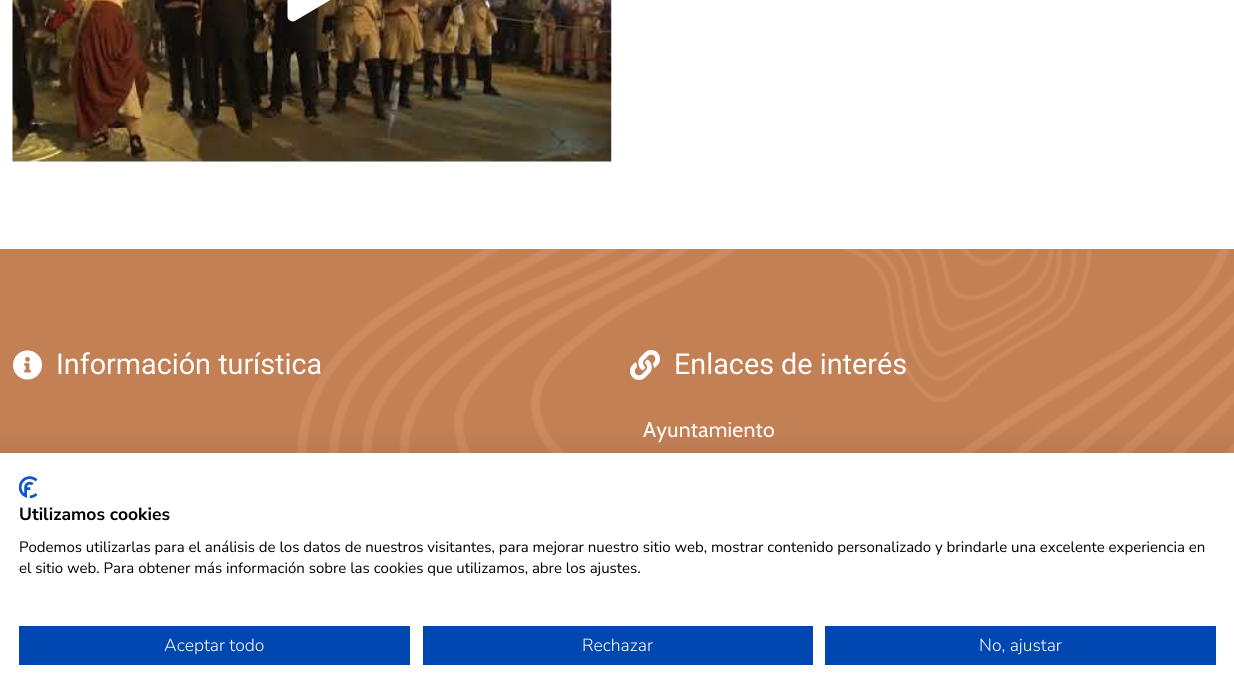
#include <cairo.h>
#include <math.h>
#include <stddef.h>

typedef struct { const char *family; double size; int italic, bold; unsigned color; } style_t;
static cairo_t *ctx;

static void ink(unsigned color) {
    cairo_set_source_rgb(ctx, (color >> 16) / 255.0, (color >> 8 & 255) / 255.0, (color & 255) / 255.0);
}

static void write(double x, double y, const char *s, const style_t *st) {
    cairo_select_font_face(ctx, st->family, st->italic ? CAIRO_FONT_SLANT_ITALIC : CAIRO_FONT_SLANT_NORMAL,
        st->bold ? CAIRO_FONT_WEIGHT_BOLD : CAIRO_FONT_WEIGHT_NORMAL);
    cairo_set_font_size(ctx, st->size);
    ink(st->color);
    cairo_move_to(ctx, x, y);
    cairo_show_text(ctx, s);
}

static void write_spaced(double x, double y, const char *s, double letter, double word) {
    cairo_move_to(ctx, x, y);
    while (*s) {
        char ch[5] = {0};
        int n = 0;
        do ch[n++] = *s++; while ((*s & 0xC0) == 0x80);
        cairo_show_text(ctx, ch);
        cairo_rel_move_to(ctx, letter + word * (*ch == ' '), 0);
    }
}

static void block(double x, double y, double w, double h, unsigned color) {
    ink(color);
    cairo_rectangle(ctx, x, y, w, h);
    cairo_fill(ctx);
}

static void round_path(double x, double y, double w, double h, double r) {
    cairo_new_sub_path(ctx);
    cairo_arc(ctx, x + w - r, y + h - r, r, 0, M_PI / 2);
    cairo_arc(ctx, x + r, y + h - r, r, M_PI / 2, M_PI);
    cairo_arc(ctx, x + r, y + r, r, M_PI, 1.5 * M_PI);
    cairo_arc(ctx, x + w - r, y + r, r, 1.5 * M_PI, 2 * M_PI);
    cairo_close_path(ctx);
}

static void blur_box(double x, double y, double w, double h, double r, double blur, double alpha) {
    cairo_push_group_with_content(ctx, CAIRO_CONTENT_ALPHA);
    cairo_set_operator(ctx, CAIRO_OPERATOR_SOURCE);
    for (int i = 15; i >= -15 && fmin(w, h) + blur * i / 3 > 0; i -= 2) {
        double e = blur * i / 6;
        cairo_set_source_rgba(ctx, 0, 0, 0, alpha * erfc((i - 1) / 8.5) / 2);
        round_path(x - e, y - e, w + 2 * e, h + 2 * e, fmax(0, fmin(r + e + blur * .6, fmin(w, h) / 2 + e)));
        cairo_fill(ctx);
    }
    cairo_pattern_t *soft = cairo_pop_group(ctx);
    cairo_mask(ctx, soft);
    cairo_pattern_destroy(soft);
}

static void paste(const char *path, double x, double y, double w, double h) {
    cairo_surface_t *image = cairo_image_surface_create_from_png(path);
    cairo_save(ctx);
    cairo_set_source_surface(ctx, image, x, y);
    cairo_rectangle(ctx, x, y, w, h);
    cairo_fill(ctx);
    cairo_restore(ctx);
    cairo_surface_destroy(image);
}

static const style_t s1 = {"Roboto", 28.75, 0, 0, 0xffffff};
static const style_t s2 = {"Nunito Sans", 17.5, 0, 1, 0x000000};
static const style_t s3 = {"Nunito Sans", 15, 0, 0, 0x000000};
static const style_t s4 = {"Nunito Sans Light", 17.5, 0, 0, 0xffffff};

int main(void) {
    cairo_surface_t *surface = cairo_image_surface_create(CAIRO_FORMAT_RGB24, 1234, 698);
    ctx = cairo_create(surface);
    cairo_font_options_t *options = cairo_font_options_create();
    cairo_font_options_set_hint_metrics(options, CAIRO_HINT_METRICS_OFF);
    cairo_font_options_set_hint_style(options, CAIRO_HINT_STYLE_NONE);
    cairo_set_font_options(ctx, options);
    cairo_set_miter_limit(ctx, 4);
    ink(0xffffff);
    cairo_paint(ctx);
    paste("pic1.png", 12, 0, 600, 162);
    paste("pic2.png", 287, 0, 44, 22);
    block(0, 249, 133, 204, 0xc48055);
    paste("pic3.png", 133, 249, 1101, 204);
    paste("pic4.png", 13, 350, 29, 30);
    write(56, 374, "Información turística", &s1);
    paste("pic5.png", 630, 350, 30, 30);
    write(674, 374, "Enlaces de interés", &s1);
    cairo_select_font_face(ctx, "Cabin", CAIRO_FONT_SLANT_NORMAL, CAIRO_FONT_WEIGHT_NORMAL);
    cairo_set_font_size(ctx, 21.25);
    write_spaced(643, 437, "Ayuntamiento", 0.25, 0);
    ink(0x000000);
    blur_box(0, 453, 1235, 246, 0, 15, 0.1);
    block(0, 453, 1234, 245, 0xffffff);
    paste("pic6.png", 19, 476, 19, 23);
    write(19, 520, "Utilizamos cookies", &s2);
    write(19, 552, "Podemos utilizarlas para el análisis de los datos de nuestros visitantes, para mejorar nuestro sitio web, mostrar contenido personalizado y brindarle una excelente experiencia en", &s3);
    write(19, 573, "el sitio web. Para obtener más información sobre las cookies que utilizamos, abre los ajustes.", &s3);
    block(19, 626, 391, 39, 0x0047b2);
    write(164, 651, "Aceptar todo", &s4);
    block(423, 626, 390, 39, 0x0047b2);
    write(582, 651, "Rechazar", &s4);
    block(825, 626, 391, 39, 0x0047b2);
    write(979, 651, "No, ajustar", &s4);
    cairo_surface_write_to_png(surface, "screenshot.png");
    cairo_font_options_destroy(options);
    cairo_destroy(ctx);
    cairo_surface_destroy(surface);
    return 0;
}
